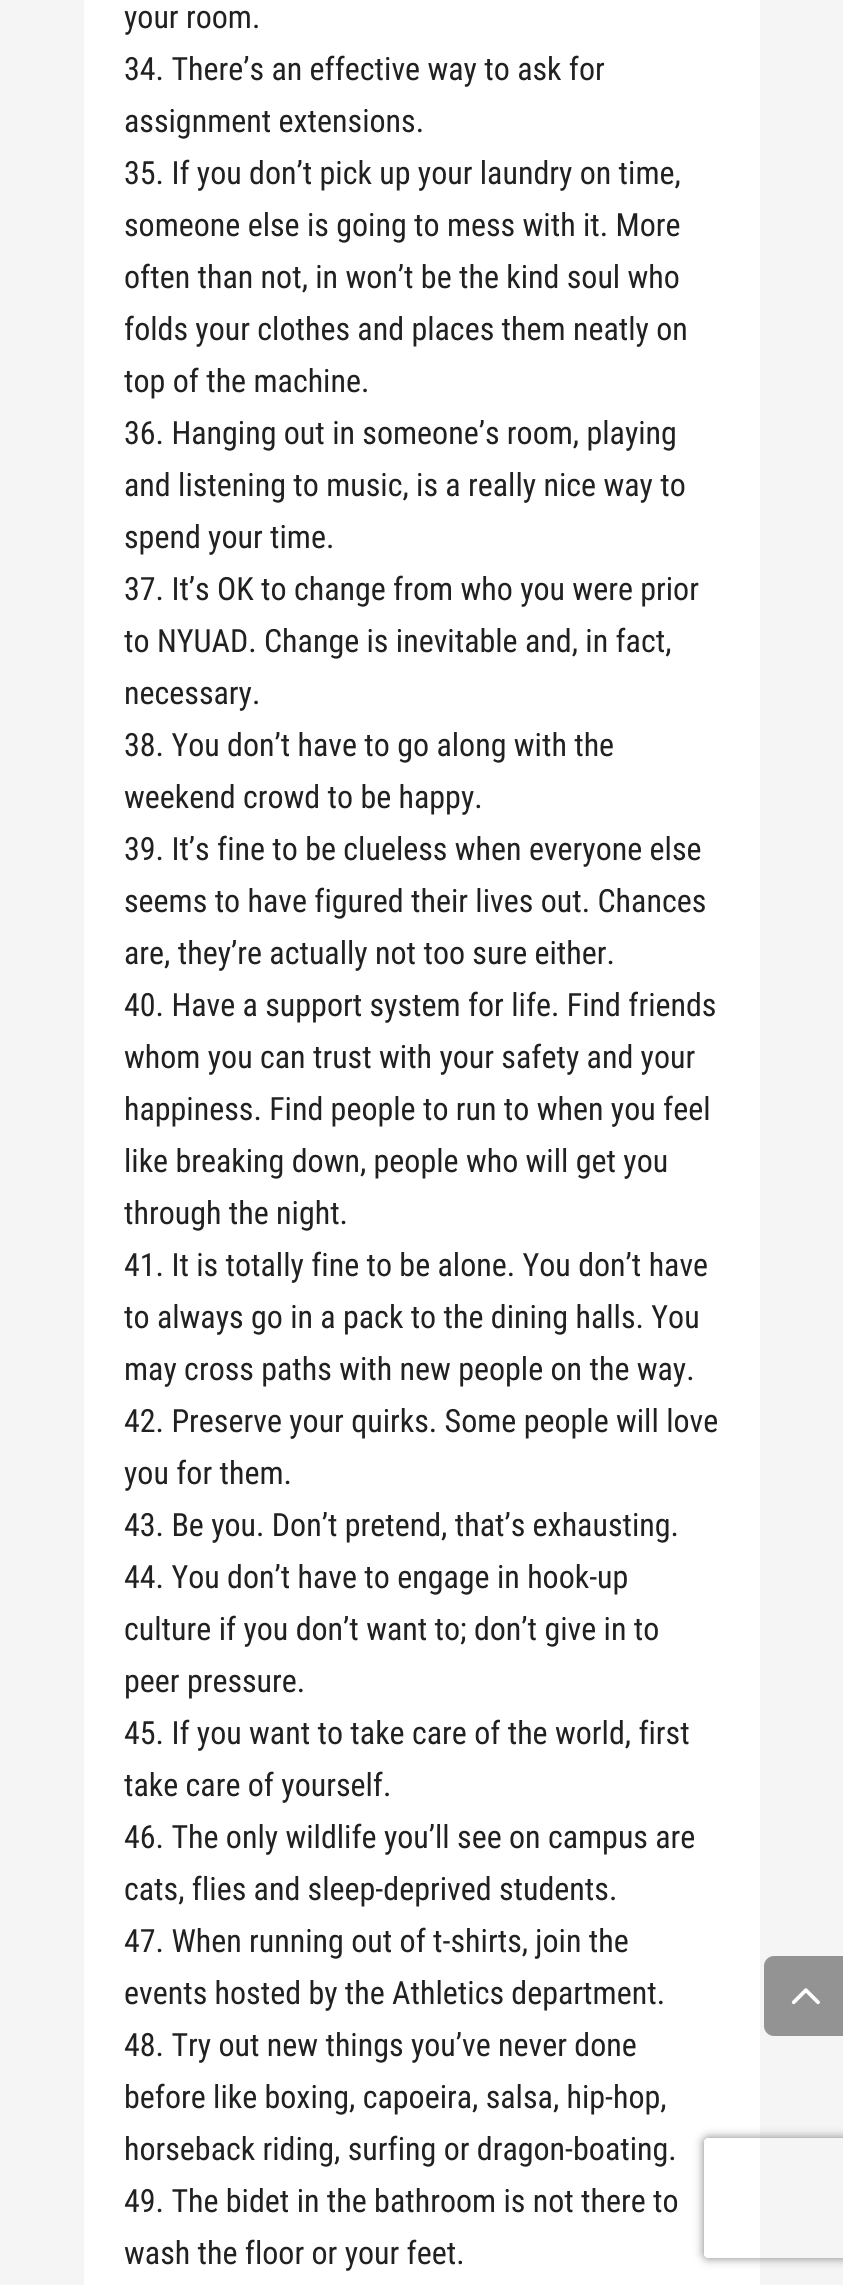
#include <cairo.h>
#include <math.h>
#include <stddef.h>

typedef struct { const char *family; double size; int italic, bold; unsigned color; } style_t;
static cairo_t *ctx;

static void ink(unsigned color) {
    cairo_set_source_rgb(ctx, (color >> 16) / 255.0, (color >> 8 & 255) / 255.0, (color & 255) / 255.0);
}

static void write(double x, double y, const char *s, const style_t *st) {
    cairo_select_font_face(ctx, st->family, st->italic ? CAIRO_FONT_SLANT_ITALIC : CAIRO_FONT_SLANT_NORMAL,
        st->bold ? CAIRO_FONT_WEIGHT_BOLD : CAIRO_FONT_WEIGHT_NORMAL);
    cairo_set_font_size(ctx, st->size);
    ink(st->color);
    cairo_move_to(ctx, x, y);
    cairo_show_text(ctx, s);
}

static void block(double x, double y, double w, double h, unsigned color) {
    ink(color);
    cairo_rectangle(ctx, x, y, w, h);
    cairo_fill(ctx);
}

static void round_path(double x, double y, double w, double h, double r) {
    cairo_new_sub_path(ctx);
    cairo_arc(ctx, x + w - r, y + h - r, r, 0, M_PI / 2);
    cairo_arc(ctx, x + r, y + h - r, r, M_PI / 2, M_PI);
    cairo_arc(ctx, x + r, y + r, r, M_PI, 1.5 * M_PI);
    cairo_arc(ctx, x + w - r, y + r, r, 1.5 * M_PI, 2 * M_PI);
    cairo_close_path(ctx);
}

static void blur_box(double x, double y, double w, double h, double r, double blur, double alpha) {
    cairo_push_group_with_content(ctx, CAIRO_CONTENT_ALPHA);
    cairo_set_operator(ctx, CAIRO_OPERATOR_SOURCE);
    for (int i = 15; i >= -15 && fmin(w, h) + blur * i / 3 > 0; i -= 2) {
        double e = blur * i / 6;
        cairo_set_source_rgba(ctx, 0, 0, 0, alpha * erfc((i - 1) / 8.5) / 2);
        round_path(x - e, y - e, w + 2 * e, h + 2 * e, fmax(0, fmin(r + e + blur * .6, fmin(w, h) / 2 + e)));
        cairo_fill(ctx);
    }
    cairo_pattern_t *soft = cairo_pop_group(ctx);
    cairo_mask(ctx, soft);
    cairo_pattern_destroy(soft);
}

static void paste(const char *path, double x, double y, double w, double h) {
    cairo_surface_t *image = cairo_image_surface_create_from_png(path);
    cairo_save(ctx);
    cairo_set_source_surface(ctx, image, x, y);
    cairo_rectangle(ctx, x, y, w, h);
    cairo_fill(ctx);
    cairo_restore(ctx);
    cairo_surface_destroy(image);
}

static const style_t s1 = {"Roboto Condensed", 32, 0, 0, 0x212121};

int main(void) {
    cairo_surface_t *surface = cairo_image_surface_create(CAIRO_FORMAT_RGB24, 843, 2285);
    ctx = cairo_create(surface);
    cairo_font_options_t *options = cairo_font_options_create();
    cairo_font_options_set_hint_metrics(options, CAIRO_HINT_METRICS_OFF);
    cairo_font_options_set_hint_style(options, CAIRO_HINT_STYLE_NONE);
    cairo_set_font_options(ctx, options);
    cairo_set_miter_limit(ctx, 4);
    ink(0xf5f5f5);
    cairo_paint(ctx);
    block(84, 0, 676, 2285, 0xffffff);
    write(124, 28, "your room.", &s1);
    write(124, 80, "34. There’s an effective way to ask for", &s1);
    write(124, 132, "assignment extensions.", &s1);
    write(124, 184, "35. If you don’t pick up your laundry on time,", &s1);
    write(124, 236, "someone else is going to mess with it. More", &s1);
    write(124, 288, "often than not, in won’t be the kind soul who", &s1);
    write(124, 340, "folds your clothes and places them neatly on", &s1);
    write(124, 392, "top of the machine.", &s1);
    write(124, 444, "36. Hanging out in someone’s room, playing", &s1);
    write(124, 496, "and listening to music, is a really nice way to", &s1);
    write(124, 548, "spend your time.", &s1);
    write(124, 600, "37. It’s OK to change from who you were prior", &s1);
    write(124, 652, "to NYUAD. Change is inevitable and, in fact,", &s1);
    write(124, 704, "necessary.", &s1);
    write(124, 756, "38. You don’t have to go along with the", &s1);
    write(124, 808, "weekend crowd to be happy.", &s1);
    write(124, 860, "39. It’s fine to be clueless when everyone else", &s1);
    write(124, 912, "seems to have figured their lives out. Chances", &s1);
    write(124, 964, "are, they’re actually not too sure either.", &s1);
    write(124, 1016, "40. Have a support system for life. Find friends", &s1);
    write(124, 1068, "whom you can trust with your safety and your", &s1);
    write(124, 1120, "happiness. Find people to run to when you feel", &s1);
    write(124, 1172, "like breaking down, people who will get you", &s1);
    write(124, 1224, "through the night.", &s1);
    write(124, 1276, "41. It is totally fine to be alone. You don’t have", &s1);
    write(124, 1328, "to always go in a pack to the dining halls. You", &s1);
    write(124, 1380, "may cross paths with new people on the way.", &s1);
    write(124, 1432, "42. Preserve your quirks. Some people will love", &s1);
    write(124, 1484, "you for them.", &s1);
    write(124, 1536, "43. Be you. Don’t pretend, that’s exhausting.", &s1);
    write(124, 1588, "44. You don’t have to engage in hook-up", &s1);
    write(124, 1640, "culture if you don’t want to; don’t give in to", &s1);
    write(124, 1692, "peer pressure.", &s1);
    write(124, 1744, "45. If you want to take care of the world, first", &s1);
    write(124, 1796, "take care of yourself.", &s1);
    write(124, 1848, "46. The only wildlife you’ll see on campus are", &s1);
    write(124, 1900, "cats, flies and sleep-deprived students.", &s1);
    write(124, 1952, "47. When running out of t-shirts, join the", &s1);
    write(124, 2004, "events hosted by the Athletics department.", &s1);
    write(124, 2056, "48. Try out new things you’ve never done", &s1);
    write(124, 2108, "before like boxing, capoeira, salsa, hip-hop,", &s1);
    write(124, 2160, "horseback riding, surfing or dragon-boating.", &s1);
    write(124, 2212, "49. The bidet in the bathroom is not there to", &s1);
    write(124, 2264, "wash the floor or your feet.", &s1);
    ink(0x939393);
    cairo_new_path(ctx);
    cairo_move_to(ctx, 774, 1956);
    cairo_line_to(ctx, 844, 1956);
    cairo_line_to(ctx, 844, 2036);
    cairo_line_to(ctx, 774, 2036);
    cairo_curve_to(ctx, 768.5, 2036, 764, 2031.5, 764, 2026);
    cairo_line_to(ctx, 764, 1966);
    cairo_curve_to(ctx, 764, 1960.5, 768.5, 1956, 774, 1956);
    cairo_close_path(ctx);
    cairo_fill(ctx);
    paste("pic1.png", 791, 1988, 29, 17);
    cairo_save(ctx);
    cairo_set_fill_rule(ctx, CAIRO_FILL_RULE_EVEN_ODD);
    cairo_new_path(ctx);
    cairo_move_to(ctx, 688, 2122);
    cairo_line_to(ctx, 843, 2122);
    cairo_line_to(ctx, 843, 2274);
    cairo_line_to(ctx, 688, 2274);
    cairo_close_path(ctx);
    cairo_move_to(ctx, 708, 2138);
    cairo_line_to(ctx, 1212, 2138);
    cairo_curve_to(ctx, 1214, 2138, 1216, 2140, 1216, 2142);
    cairo_line_to(ctx, 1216, 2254);
    cairo_curve_to(ctx, 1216, 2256, 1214, 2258, 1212, 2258);
    cairo_line_to(ctx, 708, 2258);
    cairo_curve_to(ctx, 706, 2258, 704, 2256, 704, 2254);
    cairo_line_to(ctx, 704, 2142);
    cairo_curve_to(ctx, 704, 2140, 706, 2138, 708, 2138);
    cairo_close_path(ctx);
    cairo_clip(ctx);
    ink(0x808080);
    blur_box(704, 2138, 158, 120, 4, 5, 1);
    cairo_restore(ctx);
    cairo_surface_write_to_png(surface, "screenshot.png");
    cairo_font_options_destroy(options);
    cairo_destroy(ctx);
    cairo_surface_destroy(surface);
    return 0;
}
